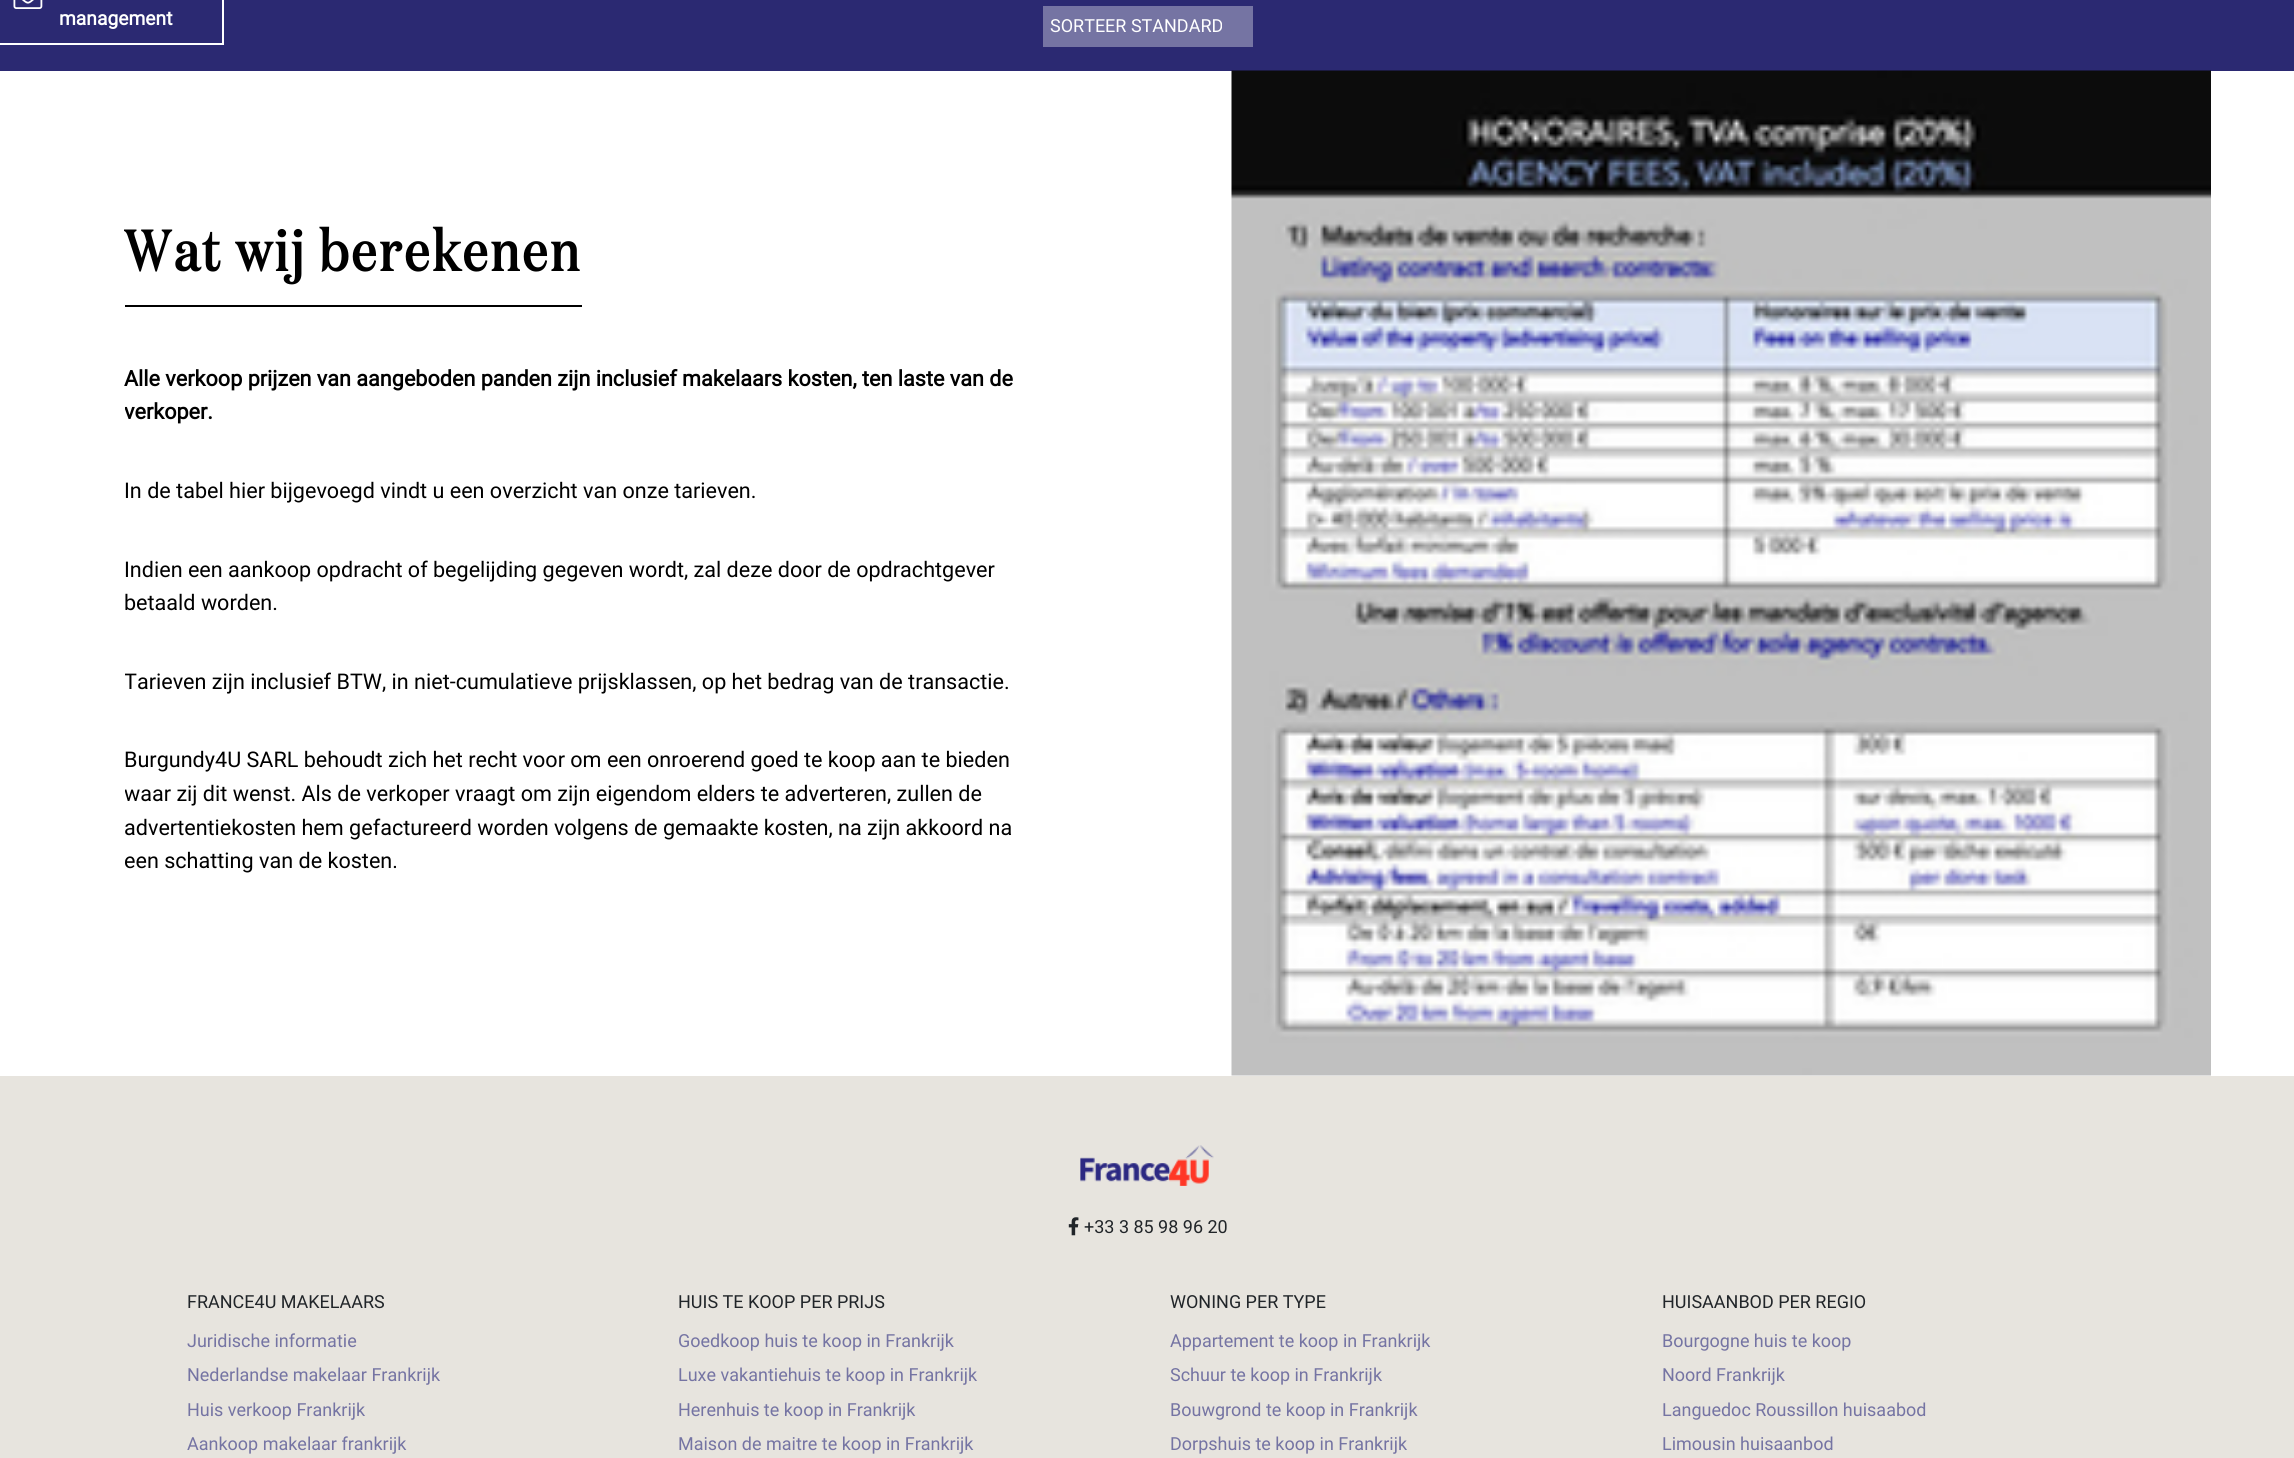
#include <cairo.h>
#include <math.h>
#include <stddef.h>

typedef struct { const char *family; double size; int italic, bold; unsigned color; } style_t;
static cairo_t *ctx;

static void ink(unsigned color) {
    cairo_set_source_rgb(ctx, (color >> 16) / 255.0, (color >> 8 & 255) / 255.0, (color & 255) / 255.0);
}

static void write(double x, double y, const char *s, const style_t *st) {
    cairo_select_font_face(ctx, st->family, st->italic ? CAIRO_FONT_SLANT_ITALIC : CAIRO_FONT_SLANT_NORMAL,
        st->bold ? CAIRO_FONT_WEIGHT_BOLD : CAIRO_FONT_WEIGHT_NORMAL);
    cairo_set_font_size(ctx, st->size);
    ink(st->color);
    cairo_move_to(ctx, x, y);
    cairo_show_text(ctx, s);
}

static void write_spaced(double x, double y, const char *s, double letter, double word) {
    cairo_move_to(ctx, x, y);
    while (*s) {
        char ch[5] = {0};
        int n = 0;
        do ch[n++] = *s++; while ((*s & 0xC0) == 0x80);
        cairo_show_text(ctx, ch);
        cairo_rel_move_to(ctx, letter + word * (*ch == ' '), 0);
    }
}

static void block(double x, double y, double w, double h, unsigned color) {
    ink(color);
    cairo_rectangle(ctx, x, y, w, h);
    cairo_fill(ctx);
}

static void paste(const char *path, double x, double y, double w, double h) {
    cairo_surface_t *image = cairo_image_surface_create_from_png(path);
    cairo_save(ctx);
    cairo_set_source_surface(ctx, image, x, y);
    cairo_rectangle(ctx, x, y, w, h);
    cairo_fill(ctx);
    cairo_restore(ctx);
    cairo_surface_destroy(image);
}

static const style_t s1 = {"Roboto", 19.25, 0, 1, 0xffffff};
static const style_t s2 = {"Roboto", 18, 0, 0, 0xffffff};
static const style_t s3 = {"Roboto", 21.6, 0, 1, 0x000000};
static const style_t s4 = {"Roboto", 21.6, 0, 0, 0x000000};
static const style_t s5 = {"Roboto", 18, 0, 0, 0x212529};
static const style_t s6 = {"Roboto", 18, 0, 0, 0x7574a3};

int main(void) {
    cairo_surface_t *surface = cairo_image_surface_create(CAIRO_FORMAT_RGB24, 2294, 1458);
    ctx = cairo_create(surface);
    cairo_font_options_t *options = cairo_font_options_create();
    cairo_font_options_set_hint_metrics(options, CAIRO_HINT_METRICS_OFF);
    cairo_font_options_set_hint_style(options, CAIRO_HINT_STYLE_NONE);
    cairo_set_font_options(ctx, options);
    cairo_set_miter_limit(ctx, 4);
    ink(0xffffff);
    cairo_paint(ctx);
    block(0, 0, 2294, 71, 0x2b2972);
    cairo_rectangle(ctx, -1, -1, 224, 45);
    ink(0xffffff);
    cairo_stroke(ctx);
    paste("pic1.png", 13, 0, 30, 9);
    write(59, 25, "management", &s1);
    block(1043, 6, 210, 41, 0x7574a3);
    write(1050, 32, "SORTEER STANDARD", &s2);
    block(125, 305, 457, 2, 0x000000);
    cairo_select_font_face(ctx, "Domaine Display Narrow", CAIRO_FONT_SLANT_NORMAL, CAIRO_FONT_WEIGHT_BOLD);
    cairo_set_font_size(ctx, 57);
    write_spaced(124, 271, "Wat wij berekenen", 3, 0);
    write(124, 386, "Alle verkoop prijzen van aangeboden panden zijn inclusief makelaars kosten, ten laste van de", &s3);
    cairo_save(ctx);
    cairo_rectangle(ctx, 125, 222, 900, 702);
    cairo_clip(ctx);
    write(124, 419, "verkoper.", &s3);
    cairo_restore(ctx);
    write(124, 498, "In de tabel hier bijgevoegd vindt u een overzicht van onze tarieven.", &s4);
    write(124, 577, "Indien een aankoop opdracht of begelijding gegeven wordt, zal deze door de opdrachtgever", &s4);
    write(124, 610, "betaald worden.", &s4);
    cairo_save(ctx);
    cairo_rectangle(ctx, 125, 222, 900, 702);
    cairo_clip(ctx);
    write(124, 689, "Tarieven zijn inclusief BTW, in niet-cumulatieve prijsklassen, op het bedrag van de transactie.", &s4);
    cairo_restore(ctx);
    write(124, 767, "Burgundy4U SARL behoudt zich het recht voor om een onroerend goed te koop aan te bieden", &s4);
    cairo_save(ctx);
    cairo_rectangle(ctx, 125, 222, 900, 702);
    cairo_clip(ctx);
    write(124, 801, "waar zij dit wenst. Als de verkoper vraagt om zijn eigendom elders te adverteren, zullen de", &s4);
    cairo_restore(ctx);
    write(124, 835, "advertentiekosten hem gefactureerd worden volgens de gemaakte kosten, na zijn akkoord na", &s4);
    cairo_save(ctx);
    cairo_rectangle(ctx, 125, 222, 900, 702);
    cairo_clip(ctx);
    write(124, 868, "een schatting van de kosten.", &s4);
    cairo_restore(ctx);
    paste("pic2.png", 1231, 70, 980, 1006);
    block(0, 1076, 2294, 382, 0xe7e4de);
    paste("pic3.png", 1080, 1145, 134, 41);
    paste("pic4.png", 1068, 1217, 11, 19);
    write(1084, 1233, "+33 3 85 98 96 20", &s5);
    write(187, 1308, "FRANCE4U MAKELAARS", &s5);
    write(187, 1347, "Juridische informatie", &s6);
    write(187, 1381, "Nederlandse makelaar Frankrijk", &s6);
    write(187, 1416, "Huis verkoop Frankrijk", &s6);
    write(187, 1450, "Aankoop makelaar frankrijk", &s6);
    write(678, 1308, "HUIS TE KOOP PER PRIJS", &s5);
    write(678, 1347, "Goedkoop huis te koop in Frankrijk", &s6);
    write(678, 1381, "Luxe vakantiehuis te koop in Frankrijk", &s6);
    write(678, 1416, "Herenhuis te koop in Frankrijk", &s6);
    write(678, 1450, "Maison de maitre te koop in Frankrijk", &s6);
    write(1170, 1308, "WONING PER TYPE", &s5);
    write(1170, 1347, "Appartement te koop in Frankrijk", &s6);
    write(1170, 1381, "Schuur te koop in Frankrijk", &s6);
    write(1170, 1416, "Bouwgrond te koop in Frankrijk", &s6);
    write(1170, 1450, "Dorpshuis te koop in Frankrijk", &s6);
    write(1662, 1308, "HUISAANBOD PER REGIO", &s5);
    write(1662, 1347, "Bourgogne huis te koop", &s6);
    write(1662, 1381, "Noord Frankrijk", &s6);
    write(1662, 1416, "Languedoc Roussillon huisaabod", &s6);
    write(1662, 1450, "Limousin huisaanbod", &s6);
    cairo_surface_write_to_png(surface, "screenshot.png");
    cairo_font_options_destroy(options);
    cairo_destroy(ctx);
    cairo_surface_destroy(surface);
    return 0;
}
